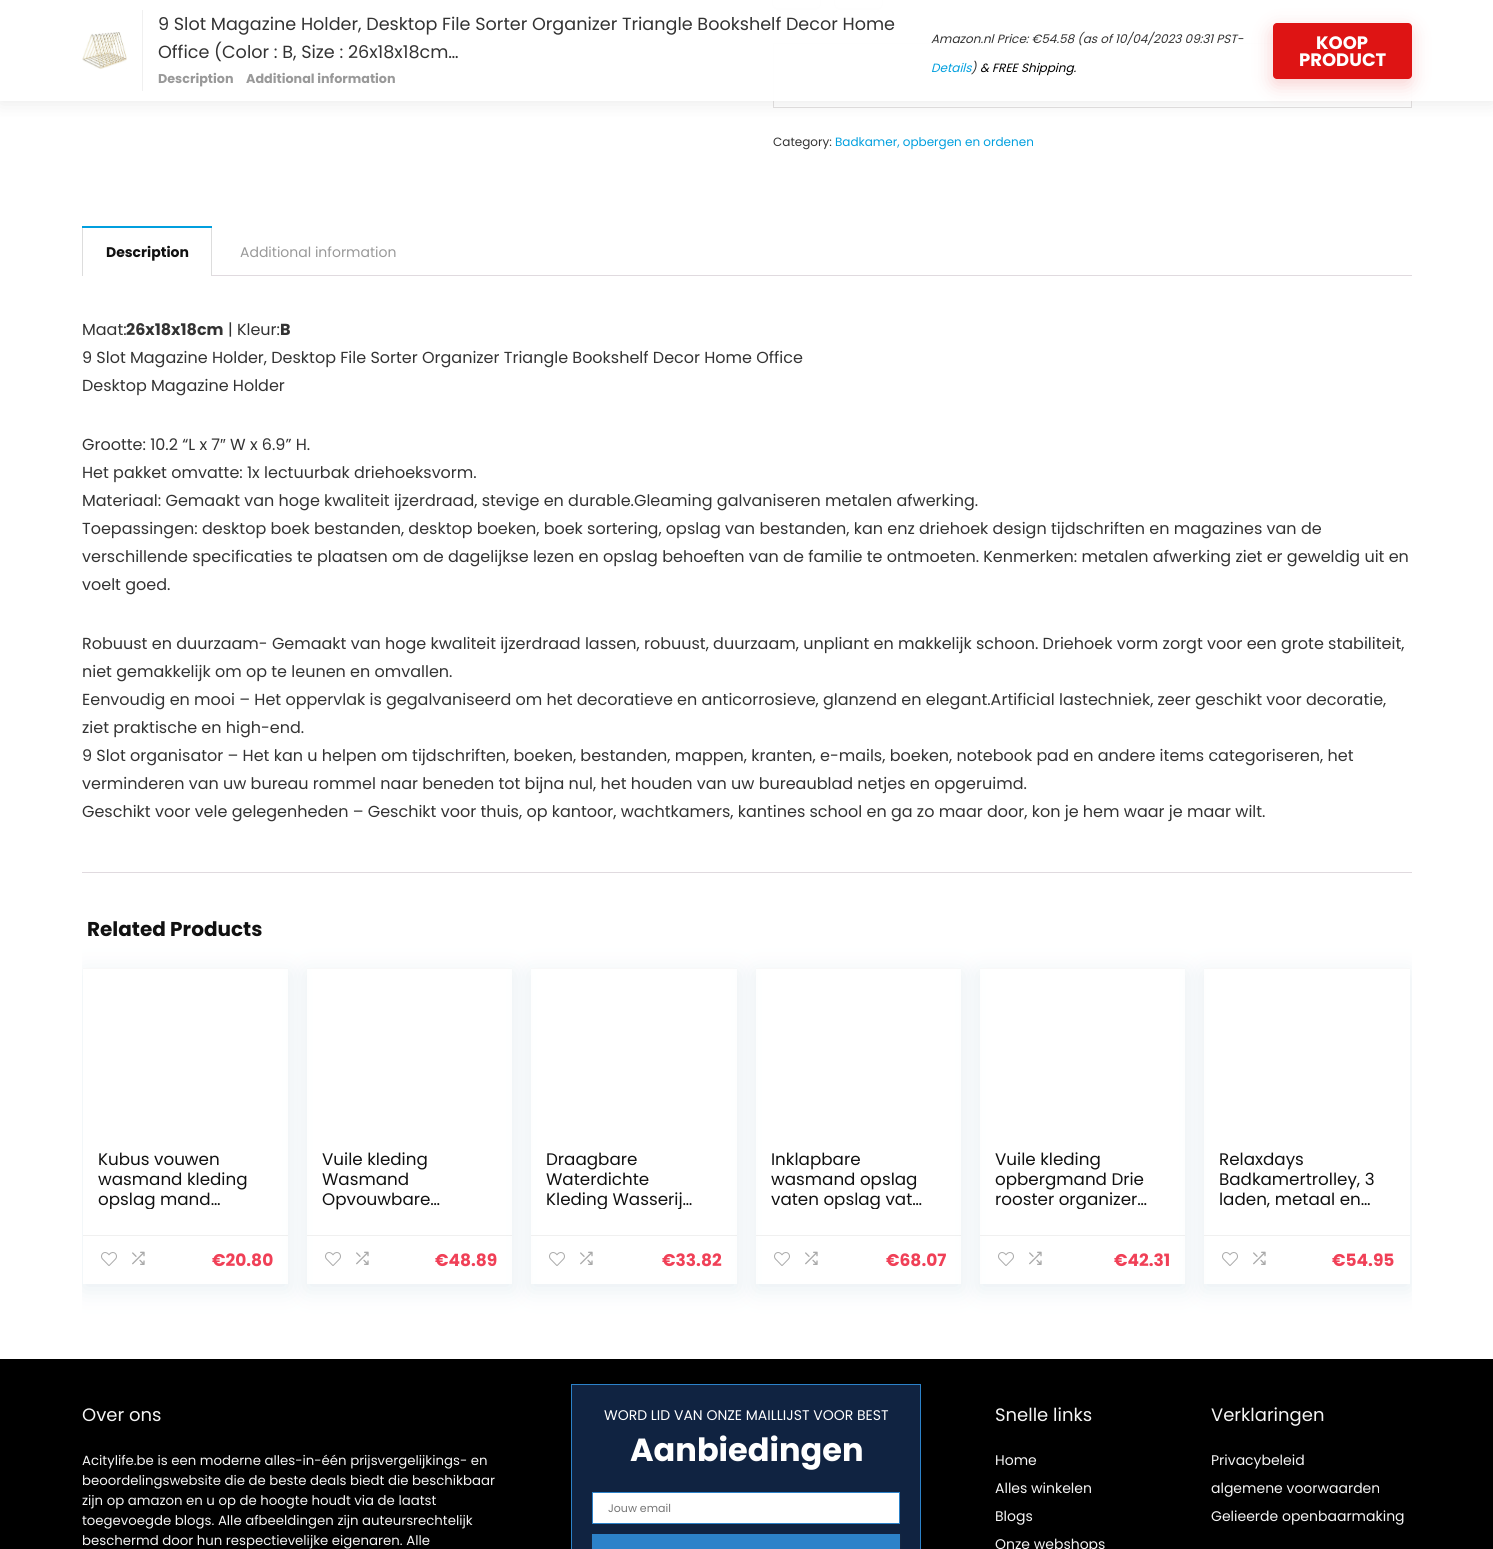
#include <cairo.h>
#include <math.h>
#include <stddef.h>

typedef struct { const char *family; double size; int italic, bold; unsigned color; } style_t;
static cairo_t *ctx;

static void ink(unsigned color) {
    cairo_set_source_rgb(ctx, (color >> 16) / 255.0, (color >> 8 & 255) / 255.0, (color & 255) / 255.0);
}

static void write(double x, double y, const char *s, const style_t *st) {
    cairo_select_font_face(ctx, st->family, st->italic ? CAIRO_FONT_SLANT_ITALIC : CAIRO_FONT_SLANT_NORMAL,
        st->bold ? CAIRO_FONT_WEIGHT_BOLD : CAIRO_FONT_WEIGHT_NORMAL);
    cairo_set_font_size(ctx, st->size);
    ink(st->color);
    cairo_move_to(ctx, x, y);
    cairo_show_text(ctx, s);
}

static void block(double x, double y, double w, double h, unsigned color) {
    ink(color);
    cairo_rectangle(ctx, x, y, w, h);
    cairo_fill(ctx);
}

static void round_path(double x, double y, double w, double h, double r) {
    cairo_new_sub_path(ctx);
    cairo_arc(ctx, x + w - r, y + h - r, r, 0, M_PI / 2);
    cairo_arc(ctx, x + r, y + h - r, r, M_PI / 2, M_PI);
    cairo_arc(ctx, x + r, y + r, r, M_PI, 1.5 * M_PI);
    cairo_arc(ctx, x + w - r, y + r, r, 1.5 * M_PI, 2 * M_PI);
    cairo_close_path(ctx);
}

static void blur_box(double x, double y, double w, double h, double r, double blur, double alpha) {
    cairo_push_group_with_content(ctx, CAIRO_CONTENT_ALPHA);
    cairo_set_operator(ctx, CAIRO_OPERATOR_SOURCE);
    for (int i = 15; i >= -15 && fmin(w, h) + blur * i / 3 > 0; i -= 2) {
        double e = blur * i / 6;
        cairo_set_source_rgba(ctx, 0, 0, 0, alpha * erfc((i - 1) / 8.5) / 2);
        round_path(x - e, y - e, w + 2 * e, h + 2 * e, fmax(0, fmin(r + e + blur * .6, fmin(w, h) / 2 + e)));
        cairo_fill(ctx);
    }
    cairo_pattern_t *soft = cairo_pop_group(ctx);
    cairo_mask(ctx, soft);
    cairo_pattern_destroy(soft);
}

static void paste(const char *path, double x, double y, double w, double h) {
    cairo_surface_t *image = cairo_image_surface_create_from_png(path);
    cairo_save(ctx);
    cairo_set_source_surface(ctx, image, x, y);
    cairo_rectangle(ctx, x, y, w, h);
    cairo_fill(ctx);
    cairo_restore(ctx);
    cairo_surface_destroy(image);
}

static const style_t s1 = {"Poppins", 17.6, 0, 0, 0x333333};
static const style_t s2 = {"Poppins", 12.75, 0, 1, 0x999999};
static const style_t s3 = {"Poppins", 12, 1, 0, 0x333333};
static const style_t s4 = {"Poppins", 12, 1, 0, 0x019fde};
static const style_t s5 = {"Poppins", 12, 1, 0, 0x000000};
static const style_t s6 = {"Poppins", 18, 0, 1, 0xffffff};
static const style_t s7 = {"Poppins", 12, 0, 0, 0x333333};
static const style_t s8 = {"Poppins", 12, 0, 0, 0x019fde};
static const style_t s9 = {"Poppins", 14, 0, 1, 0x111111};
static const style_t s10 = {"Poppins", 14, 0, 0, 0x999999};
static const style_t s11 = {"Poppins", 16, 0, 0, 0x333333};
static const style_t s12 = {"Poppins", 16, 0, 1, 0x333333};
static const style_t s13 = {"Liberation Sans", 16, 0, 0, 0x333333};
static const style_t s14 = {"Poppins", 20, 0, 1, 0x111111};
static const style_t s15 = {"Poppins", 16.75, 0, 0, 0x111111};
static const style_t s16 = {"Poppins", 17, 0, 1, 0xf04057};
static const style_t s17 = {"Poppins", 18, 0, 0, 0xf5f5f5};
static const style_t s18 = {"Poppins", 13.3, 0, 0, 0xf5f5f5};
static const style_t s19 = {"Poppins", 14, 0, 0, 0xffffff};
static const style_t s20 = {"Poppins", 32, 0, 1, 0xffffff};
static const style_t s21 = {"Poppins", 11, 0, 0, 0x757575};
static const style_t s22 = {"Poppins", 14, 0, 0, 0xf5f5f5};

int main(void) {
    cairo_surface_t *surface = cairo_image_surface_create(CAIRO_FORMAT_RGB24, 1493, 1549);
    ctx = cairo_create(surface);
    cairo_font_options_t *options = cairo_font_options_create();
    cairo_font_options_set_hint_metrics(options, CAIRO_HINT_METRICS_OFF);
    cairo_font_options_set_hint_style(options, CAIRO_HINT_STYLE_NONE);
    cairo_set_font_options(ctx, options);
    cairo_set_miter_limit(ctx, 4);
    ink(0xffffff);
    cairo_paint(ctx);
    ink(0x000000);
    blur_box(773, -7, 47, 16, 4, 1, 0.08);
    ink(0x3c4043);
    blur_box(773, -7, 47, 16, 4, 1, 0.3);
    ink(0xf6f6f6);
    round_path(773, -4, 47, 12, 4);
    cairo_fill(ctx);
    ink(0x000000);
    blur_box(835, -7, 47, 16, 4, 1, 0.08);
    ink(0x3c4043);
    blur_box(835, -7, 47, 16, 4, 1, 0.3);
    ink(0xf6f6f6);
    round_path(835, -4, 47, 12, 4);
    cairo_fill(ctx);
    cairo_rectangle(ctx, 773.5, 43.5, 638, 64);
    ink(0xe0dede);
    cairo_set_line_width(ctx, 1);
    cairo_stroke(ctx);
    cairo_save(ctx);
    cairo_rectangle(ctx, 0, 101, 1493, 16);
    cairo_clip(ctx);
    ink(0xbbbbbb);
    blur_box(0, 0, 1493, 101, 0, 10, 0.36);
    cairo_restore(ctx);
    cairo_set_source_rgba(ctx, 1, 1, 1, 0.97);
    cairo_rectangle(ctx, 771, 0, 641, 101);
    cairo_fill(ctx);
    paste("pic1.png", 82, 32, 45, 37);
    block(142, 10, 1, 81, 0xf0f0f0);
    write(158, 30, "9 Slot Magazine Holder, Desktop File Sorter Organizer Triangle Bookshelf Decor Home", &s1);
    write(158, 58, "Office (Color : B, Size : 26x18x18cm…", &s1);
    write(158, 83, "Description", &s2);
    write(246, 83, "Additional information", &s2);
    write(931, 43, "Amazon.nl Price: €54.58 (as of 10/04/2023 09:31 PST-", &s3);
    write(931, 72, "Details", &s4);
    write(971, 72, ")", &s3);
    write(980, 72, "& FREE Shipping.", &s5);
    ink(0xde1414);
    blur_box(1272, 29, 139, 56, 4, 9.5, 0.2);
    ink(0xde1414);
    round_path(1273, 23, 139, 56, 4);
    cairo_fill(ctx);
    write(1316, 49, "KOOP", &s6);
    write(1299, 66, "PRODUCT", &s6);
    write(773, 146, "Category:", &s7);
    write(835, 146, "Badkamer, opbergen en ordenen", &s8);
    block(82, 226, 130, 2, 0x019fde);
    block(211, 228, 1, 48, 0xdddddd);
    block(82, 228, 1, 48, 0xdddddd);
    write(106, 257, "Description", &s9);
    write(240, 257, "Additional information", &s10);
    block(212, 275, 1200, 1, 0xe0dadf);
    block(82, 872, 1330, 1, 0xe0dadf);
    write(82, 335, "Maat:", &s11);
    write(126, 335, "26x18x18cm", &s12);
    write(228, 335, "| Kleur:", &s11);
    write(280, 335, "B", &s12);
    write(82, 363, "9 Slot Magazine Holder, Desktop File Sorter Organizer Triangle Bookshelf Decor Home Office", &s11);
    write(82, 391, "Desktop Magazine Holder", &s11);
    write(82, 450, "Grootte: 10.2 “L x 7", &s11);
    write(220, 450, "″", &s13);
    write(230, 450, "W x 6.9” H.", &s11);
    write(82, 478, "Het pakket omvatte: 1x lectuurbak driehoeksvorm.", &s11);
    write(82, 506, "Materiaal: Gemaakt van hoge kwaliteit ijzerdraad, stevige en durable.Gleaming galvaniseren metalen afwerking.", &s11);
    write(82, 534, "Toepassingen: desktop boek bestanden, desktop boeken, boek sortering, opslag van bestanden, kan enz driehoek design tijdschriften en magazines van de", &s11);
    write(82, 562, "verschillende specificaties te plaatsen om de dagelijkse lezen en opslag behoeften van de familie te ontmoeten. Kenmerken: metalen afwerking ziet er geweldig uit en", &s11);
    write(82, 590, "voelt goed.", &s11);
    write(82, 649, "Robuust en duurzaam- Gemaakt van hoge kwaliteit ijzerdraad lassen, robuust, duurzaam, unpliant en makkelijk schoon. Driehoek vorm zorgt voor een grote stabiliteit,", &s11);
    write(82, 677, "niet gemakkelijk om op te leunen en omvallen.", &s11);
    write(82, 705, "Eenvoudig en mooi – Het oppervlak is gegalvaniseerd om het decoratieve en anticorrosieve, glanzend en elegant.Artificial lastechniek, zeer geschikt voor decoratie,", &s11);
    write(82, 733, "ziet praktische en high-end.", &s11);
    write(82, 761, "9 Slot organisator – Het kan u helpen om tijdschriften, boeken, bestanden, mappen, kranten, e-mails, boeken, notebook pad en andere items categoriseren, het", &s11);
    write(82, 789, "verminderen van uw bureau rommel naar beneden tot bijna nul, het houden van uw bureaublad netjes en opgeruimd.", &s11);
    write(82, 817, "Geschikt voor vele gelegenheden – Geschikt voor thuis, op kantoor, wachtkamers, kantines school en ga zo maar door, kon je hem waar je maar wilt.", &s11);
    write(87, 936, "Related Products", &s14);
    cairo_save(ctx);
    cairo_rectangle(ctx, 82, 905, 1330, 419);
    cairo_clip(ctx);
    cairo_set_fill_rule(ctx, CAIRO_FILL_RULE_EVEN_ODD);
    cairo_new_path(ctx);
    cairo_move_to(ctx, 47, 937);
    cairo_line_to(ctx, 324, 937);
    cairo_line_to(ctx, 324, 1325);
    cairo_line_to(ctx, 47, 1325);
    cairo_close_path(ctx);
    cairo_move_to(ctx, 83, 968);
    cairo_line_to(ctx, 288, 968);
    cairo_line_to(ctx, 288, 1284);
    cairo_line_to(ctx, 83, 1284);
    cairo_close_path(ctx);
    cairo_clip(ctx);
    ink(0xbccfdb);
    blur_box(83, 973, 205, 316, 0, 11.5, 0.35);
    cairo_restore(ctx);
    block(83, 968, 205, 1, 0xf8f8f8);
    write(98, 1165, "Kubus vouwen", &s15);
    write(98, 1185, "wasmand kleding", &s15);
    cairo_save(ctx);
    cairo_rectangle(ctx, 98, 1149, 160, 60);
    cairo_clip(ctx);
    write(98, 1205, "opslag mand…", &s15);
    cairo_restore(ctx);
    block(83, 1235, 205, 1, 0xf0f0f0);
    paste("pic2.png", 101, 1252, 16, 14);
    paste("pic3.png", 132, 1251, 13, 14);
    write(212, 1266, "€20.80", &s16);
    cairo_save(ctx);
    cairo_set_fill_rule(ctx, CAIRO_FILL_RULE_EVEN_ODD);
    cairo_new_path(ctx);
    cairo_move_to(ctx, 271, 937);
    cairo_line_to(ctx, 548, 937);
    cairo_line_to(ctx, 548, 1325);
    cairo_line_to(ctx, 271, 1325);
    cairo_close_path(ctx);
    cairo_move_to(ctx, 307, 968);
    cairo_line_to(ctx, 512, 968);
    cairo_line_to(ctx, 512, 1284);
    cairo_line_to(ctx, 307, 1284);
    cairo_close_path(ctx);
    cairo_clip(ctx);
    ink(0xbccfdb);
    blur_box(307, 973, 205, 316, 0, 11.5, 0.35);
    cairo_restore(ctx);
    block(307, 968, 205, 1, 0xf8f8f8);
    write(322, 1165, "Vuile kleding", &s15);
    write(322, 1185, "Wasmand", &s15);
    write(322, 1205, "Opvouwbare…", &s15);
    block(307, 1235, 205, 1, 0xf0f0f0);
    paste("pic2.png", 325, 1252, 16, 14);
    paste("pic3.png", 356, 1251, 13, 14);
    write(435, 1266, "€48.89", &s16);
    cairo_save(ctx);
    cairo_set_fill_rule(ctx, CAIRO_FILL_RULE_EVEN_ODD);
    cairo_new_path(ctx);
    cairo_move_to(ctx, 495, 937);
    cairo_line_to(ctx, 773, 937);
    cairo_line_to(ctx, 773, 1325);
    cairo_line_to(ctx, 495, 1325);
    cairo_close_path(ctx);
    cairo_move_to(ctx, 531, 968);
    cairo_line_to(ctx, 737, 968);
    cairo_line_to(ctx, 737, 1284);
    cairo_line_to(ctx, 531, 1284);
    cairo_close_path(ctx);
    cairo_clip(ctx);
    ink(0xbccfdb);
    blur_box(531, 973, 206, 316, 0, 11.5, 0.35);
    cairo_restore(ctx);
    block(531, 968, 206, 1, 0xf8f8f8);
    write(546, 1165, "Draagbare", &s15);
    write(546, 1185, "Waterdichte", &s15);
    cairo_save(ctx);
    cairo_rectangle(ctx, 546, 1149, 161, 60);
    cairo_clip(ctx);
    write(546, 1205, "Kleding Wasserij…", &s15);
    cairo_restore(ctx);
    block(531, 1235, 206, 1, 0xf0f0f0);
    paste("pic2.png", 549, 1252, 16, 14);
    paste("pic3.png", 580, 1251, 13, 14);
    write(662, 1266, "€33.82", &s16);
    cairo_save(ctx);
    cairo_set_fill_rule(ctx, CAIRO_FILL_RULE_EVEN_ODD);
    cairo_new_path(ctx);
    cairo_move_to(ctx, 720, 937);
    cairo_line_to(ctx, 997, 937);
    cairo_line_to(ctx, 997, 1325);
    cairo_line_to(ctx, 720, 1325);
    cairo_close_path(ctx);
    cairo_move_to(ctx, 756, 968);
    cairo_line_to(ctx, 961, 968);
    cairo_line_to(ctx, 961, 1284);
    cairo_line_to(ctx, 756, 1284);
    cairo_close_path(ctx);
    cairo_clip(ctx);
    ink(0xbccfdb);
    blur_box(756, 973, 205, 316, 0, 11.5, 0.35);
    cairo_restore(ctx);
    block(756, 968, 205, 1, 0xf8f8f8);
    write(771, 1165, "Inklapbare", &s15);
    write(771, 1185, "wasmand opslag", &s15);
    cairo_save(ctx);
    cairo_rectangle(ctx, 771, 1149, 160, 60);
    cairo_clip(ctx);
    write(771, 1205, "vaten opslag vat…", &s15);
    cairo_restore(ctx);
    block(756, 1235, 205, 1, 0xf0f0f0);
    paste("pic2.png", 774, 1252, 16, 14);
    paste("pic3.png", 805, 1251, 13, 14);
    write(886, 1266, "€68.07", &s16);
    cairo_save(ctx);
    cairo_set_fill_rule(ctx, CAIRO_FILL_RULE_EVEN_ODD);
    cairo_new_path(ctx);
    cairo_move_to(ctx, 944, 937);
    cairo_line_to(ctx, 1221, 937);
    cairo_line_to(ctx, 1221, 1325);
    cairo_line_to(ctx, 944, 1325);
    cairo_close_path(ctx);
    cairo_move_to(ctx, 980, 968);
    cairo_line_to(ctx, 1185, 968);
    cairo_line_to(ctx, 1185, 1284);
    cairo_line_to(ctx, 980, 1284);
    cairo_close_path(ctx);
    cairo_clip(ctx);
    ink(0xbccfdb);
    blur_box(980, 973, 205, 316, 0, 11.5, 0.35);
    cairo_restore(ctx);
    block(980, 968, 205, 1, 0xf8f8f8);
    write(995, 1165, "Vuile kleding", &s15);
    write(995, 1185, "opbergmand Drie", &s15);
    cairo_save(ctx);
    cairo_rectangle(ctx, 995, 1149, 160, 60);
    cairo_clip(ctx);
    write(995, 1205, "rooster organizer…", &s15);
    cairo_restore(ctx);
    block(980, 1235, 205, 1, 0xf0f0f0);
    paste("pic2.png", 998, 1252, 16, 14);
    paste("pic3.png", 1029, 1251, 13, 14);
    write(1114, 1266, "€42.31", &s16);
    cairo_save(ctx);
    cairo_rectangle(ctx, 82, 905, 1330, 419);
    cairo_clip(ctx);
    cairo_set_fill_rule(ctx, CAIRO_FILL_RULE_EVEN_ODD);
    cairo_new_path(ctx);
    cairo_move_to(ctx, 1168, 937);
    cairo_line_to(ctx, 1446, 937);
    cairo_line_to(ctx, 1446, 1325);
    cairo_line_to(ctx, 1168, 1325);
    cairo_close_path(ctx);
    cairo_move_to(ctx, 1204, 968);
    cairo_line_to(ctx, 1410, 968);
    cairo_line_to(ctx, 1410, 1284);
    cairo_line_to(ctx, 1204, 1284);
    cairo_close_path(ctx);
    cairo_clip(ctx);
    ink(0xbccfdb);
    blur_box(1204, 973, 206, 316, 0, 11.5, 0.35);
    cairo_restore(ctx);
    block(1204, 968, 206, 1, 0xf8f8f8);
    write(1219, 1165, "Relaxdays", &s15);
    write(1219, 1185, "Badkamertrolley, 3", &s15);
    write(1219, 1205, "laden, metaal en…", &s15);
    block(1204, 1235, 206, 1, 0xf0f0f0);
    paste("pic2.png", 1222, 1252, 16, 14);
    paste("pic3.png", 1253, 1251, 13, 14);
    write(1332, 1266, "€54.95", &s16);
    block(0, 1359, 1493, 190, 0x000000);
    write(82, 1421, "Over ons", &s17);
    write(82, 1465, "Acitylife.be is een moderne alles-in-één prijsvergelijkings- en", &s18);
    write(82, 1485, "beoordelingswebsite die de beste deals biedt die beschikbaar", &s18);
    write(82, 1505, "zijn op amazon en u op de hoogte houdt via de laatst", &s18);
    write(82, 1525, "toegevoegde blogs. Alle afbeeldingen zijn auteursrechtelijk", &s18);
    write(82, 1545, "beschermd door hun respectievelijke eigenaren. Alle", &s18);
    ink(0x102341);
    cairo_rectangle(ctx, 571.5, 1384.5, 349, 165);
    cairo_fill_preserve(ctx);
    ink(0x2c82c9);
    cairo_stroke(ctx);
    write(604, 1420, "WORD LID VAN ONZE MAILLIJST VOOR BEST", &s19);
    write(630, 1461, "Aanbiedingen", &s20);
    cairo_rectangle(ctx, 592.5, 1492.5, 307, 31);
    cairo_fill_preserve(ctx);
    ink(0x2c82c9);
    cairo_stroke(ctx);
    write(608, 1512, "Jouw email", &s21);
    ink(0x3c4043);
    blur_box(592, 1535, 308, 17, 0, 1, 0.3);
    block(592, 1534, 308, 15, 0x2c82c9);
    write(995, 1421, "Snelle links", &s17);
    write(995, 1465, "Home", &s22);
    write(995, 1493, "Alles winkelen", &s22);
    write(995, 1521, "Blogs", &s22);
    write(995, 1549, "Onze webshops", &s22);
    write(1211, 1421, "Verklaringen", &s17);
    write(1211, 1465, "Privacybeleid", &s22);
    write(1211, 1493, "algemene voorwaarden", &s22);
    write(1211, 1521, "Gelieerde openbaarmaking", &s22);
    cairo_surface_write_to_png(surface, "screenshot.png");
    cairo_font_options_destroy(options);
    cairo_destroy(ctx);
    cairo_surface_destroy(surface);
    return 0;
}
